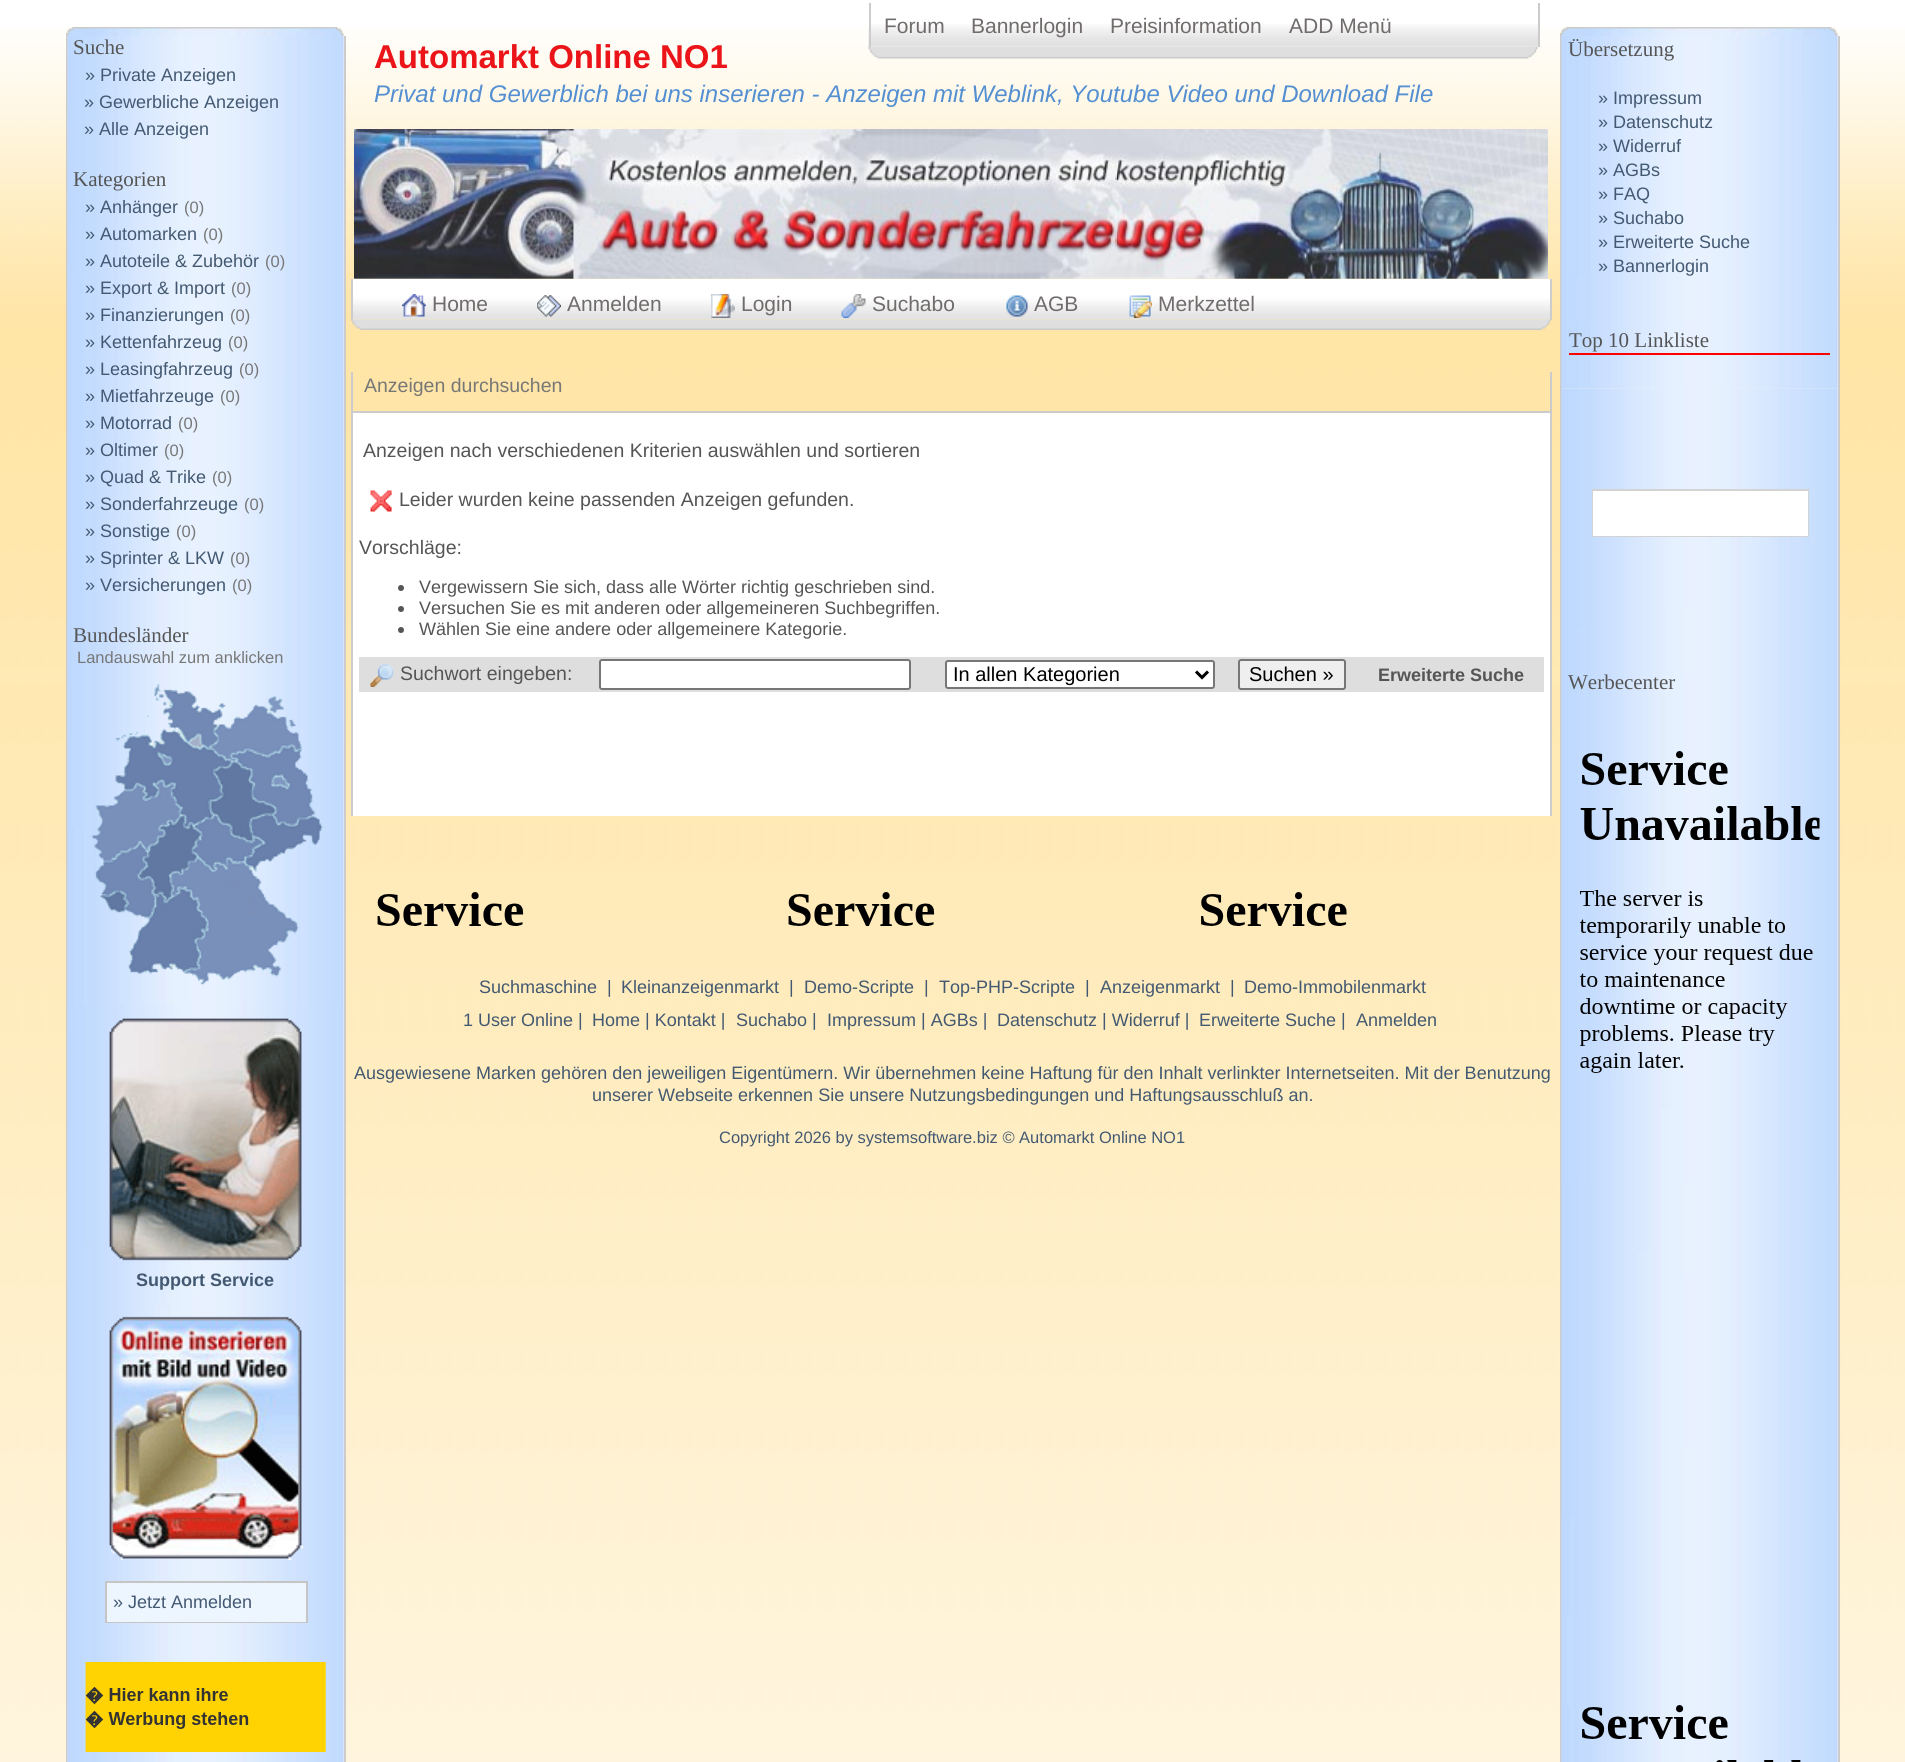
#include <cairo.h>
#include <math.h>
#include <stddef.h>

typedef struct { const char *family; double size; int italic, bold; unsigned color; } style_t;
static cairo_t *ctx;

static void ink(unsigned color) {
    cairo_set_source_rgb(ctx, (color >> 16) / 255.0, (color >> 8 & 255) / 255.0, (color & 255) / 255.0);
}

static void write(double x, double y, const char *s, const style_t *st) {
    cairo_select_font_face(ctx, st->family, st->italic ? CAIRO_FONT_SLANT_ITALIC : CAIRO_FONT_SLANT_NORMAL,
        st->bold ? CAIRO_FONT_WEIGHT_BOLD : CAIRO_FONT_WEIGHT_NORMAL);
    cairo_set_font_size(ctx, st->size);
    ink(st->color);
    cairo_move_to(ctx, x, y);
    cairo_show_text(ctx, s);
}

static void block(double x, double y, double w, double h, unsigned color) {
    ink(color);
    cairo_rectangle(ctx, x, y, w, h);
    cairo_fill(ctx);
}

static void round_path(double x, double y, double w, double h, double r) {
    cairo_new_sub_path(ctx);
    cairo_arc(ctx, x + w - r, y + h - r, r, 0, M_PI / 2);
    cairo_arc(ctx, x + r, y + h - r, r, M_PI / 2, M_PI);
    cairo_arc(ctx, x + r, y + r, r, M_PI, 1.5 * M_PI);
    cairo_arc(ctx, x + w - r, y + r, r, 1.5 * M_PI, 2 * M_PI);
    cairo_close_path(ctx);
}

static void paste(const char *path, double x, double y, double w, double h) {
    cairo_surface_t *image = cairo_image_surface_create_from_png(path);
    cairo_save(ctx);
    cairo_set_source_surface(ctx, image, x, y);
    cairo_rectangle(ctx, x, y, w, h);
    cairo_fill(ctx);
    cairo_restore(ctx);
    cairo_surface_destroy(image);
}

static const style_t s1 = {"Liberation Serif", 21, 0, 0, 0x555555};
static const style_t s2 = {"Liberation Sans", 18, 0, 0, 0x435971};
static const style_t s3 = {"Liberation Sans", 16.5, 0, 0, 0x777777};
static const style_t s4 = {"Liberation Sans", 18, 0, 1, 0x435971};
static const style_t s5 = {"Liberation Sans", 21, 0, 0, 0x706c6b};
static const style_t s6 = {"Liberation Sans", 33, 0, 1, 0xea1419};
static const style_t s7 = {"Liberation Sans", 24, 1, 0, 0x548fd1};
static const style_t s8 = {"Liberation Sans", 19.5, 0, 0, 0x777777};
static const style_t s9 = {"Liberation Sans", 19.5, 0, 0, 0x555555};
static const style_t s10 = {"Liberation Sans", 18, 0, 0, 0x555555};
static const style_t s11 = {"Liberation Sans", 20, 0, 0, 0x000000};
static const style_t s12 = {"Liberation Sans", 18, 0, 1, 0x555555};
static const style_t s13 = {"Liberation Sans", 16.5, 0, 0, 0x435971};

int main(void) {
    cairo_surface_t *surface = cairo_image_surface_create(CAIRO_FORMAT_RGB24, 1905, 1762);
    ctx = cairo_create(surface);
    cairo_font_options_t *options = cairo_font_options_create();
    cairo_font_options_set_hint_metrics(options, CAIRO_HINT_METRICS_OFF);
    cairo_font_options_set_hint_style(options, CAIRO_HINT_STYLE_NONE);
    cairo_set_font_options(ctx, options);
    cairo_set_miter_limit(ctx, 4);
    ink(0xffffff);
    cairo_paint(ctx);
    paste("pic1.png", 0, 27, 1905, 1735);
    paste("pic2.png", 66, 27, 278, 9);
    block(343, 36, 1, 1726, 0xf3f3f3);
    block(344, 36, 2, 1726, 0xcccccc);
    block(66, 36, 2, 1726, 0xcccccc);
    paste("pic3.png", 67, 36, 277, 969);
    write(73, 54, "Suche", &s1);
    write(85, 81, "» Private Anzeigen", &s2);
    write(84, 108, "» Gewerbliche Anzeigen", &s2);
    write(84, 135, "» Alle Anzeigen", &s2);
    write(73, 186, "Kategorien", &s1);
    write(85, 213, "» Anhänger", &s2);
    write(184, 213, "(0)", &s3);
    write(85, 240, "» Automarken", &s2);
    write(203, 240, "(0)", &s3);
    write(85, 267, "» Autoteile & Zubehör", &s2);
    write(265, 267, "(0)", &s3);
    write(85, 294, "» Export & Import", &s2);
    write(231, 294, "(0)", &s3);
    write(85, 321, "» Finanzierungen", &s2);
    write(230, 321, "(0)", &s3);
    write(85, 348, "» Kettenfahrzeug", &s2);
    write(228, 348, "(0)", &s3);
    write(85, 375, "» Leasingfahrzeug", &s2);
    write(239, 375, "(0)", &s3);
    write(85, 402, "» Mietfahrzeuge", &s2);
    write(220, 402, "(0)", &s3);
    write(85, 429, "» Motorrad", &s2);
    write(178, 429, "(0)", &s3);
    write(85, 456, "» Oltimer", &s2);
    write(164, 456, "(0)", &s3);
    write(85, 483, "» Quad & Trike", &s2);
    write(212, 483, "(0)", &s3);
    write(85, 510, "» Sonderfahrzeuge", &s2);
    write(244, 510, "(0)", &s3);
    write(85, 537, "» Sonstige", &s2);
    write(176, 537, "(0)", &s3);
    write(85, 564, "» Sprinter & LKW", &s2);
    write(230, 564, "(0)", &s3);
    write(85, 591, "» Versicherungen", &s2);
    write(232, 591, "(0)", &s3);
    write(73, 642, "Bundesländer", &s1);
    write(77, 663, "Landauswahl zum anklicken", &s3);
    paste("pic4.png", 91, 683, 232, 302);
    paste("pic5.png", 67, 1005, 277, 757);
    paste("pic6.png", 109, 1018, 193, 243);
    write(136, 1286, "Support Service", &s4);
    paste("pic7.png", 109, 1316, 194, 244);
    block(105, 1581, 203, 42, 0xc5c5c5);
    block(107, 1583, 199, 39, 0xedf5ff);
    write(113, 1608, "» Jetzt Anmelden", &s2);
    paste("pic8.png", 85, 1662, 241, 90);
    paste("pic10.png", 868, 46, 670, 13);
    paste("pic9.png", 868, 24, 670, 23);
    block(1538, 3, 2, 44, 0xcccccc);
    block(869, 3, 2, 44, 0xcccccc);
    write(884, 33, "Forum", &s5);
    write(971, 33, "Bannerlogin", &s5);
    write(1110, 33, "Preisinformation", &s5);
    write(1289, 33, "ADD Menü", &s5);
    write(374, 68, "Automarkt Online NO1", &s6);
    write(374, 102, "Privat und Gewerblich bei uns inserieren - Anzeigen mit Weblink, Youtube Video und Download File", &s7);
    paste("pic11.png", 354, 129, 1194, 150);
    paste("pic12.png", 353, 279, 1197, 41);
    block(1550, 279, 2, 41, 0xcccccc);
    block(351, 279, 2, 41, 0xcccccc);
    paste("pic13.png", 402, 294, 24, 23);
    write(432, 311, "Home", &s5);
    paste("pic14.png", 537, 295, 24, 22);
    write(567, 311, "Anmelden", &s5);
    paste("pic15.png", 711, 294, 24, 24);
    write(741, 311, "Login", &s5);
    paste("pic16.png", 841, 294, 25, 24);
    write(872, 311, "Suchabo", &s5);
    paste("pic17.png", 1006, 295, 22, 22);
    write(1034, 311, "AGB", &s5);
    paste("pic18.png", 1129, 295, 23, 23);
    write(1158, 311, "Merkzettel", &s5);
    paste("pic19.png", 351, 319, 1200, 11);
    block(1550, 372, 2, 39, 0xcbcbcb);
    block(351, 372, 2, 39, 0xcbcbcb);
    write(364, 392, "Anzeigen durchsuchen", &s8);
    block(353, 413, 1197, 403, 0xffffff);
    block(351, 411, 1200, 2, 0xcccccc);
    block(1550, 411, 2, 405, 0xcccccc);
    block(351, 411, 2, 405, 0xcccccc);
    write(363, 457, "Anzeigen nach verschiedenen Kriterien auswählen und sortieren", &s9);
    paste("pic20.png", 370, 490, 22, 22);
    write(399, 506, "Leider wurden keine passenden Anzeigen gefunden.", &s9);
    write(359, 554, "Vorschläge:", &s9);
    cairo_new_path(ctx);
    cairo_arc(ctx, 401, 588, 3, 0, 2 * M_PI);
    cairo_fill(ctx);
    write(419, 593, "Vergewissern Sie sich, dass alle Wörter richtig geschrieben sind.", &s10);
    cairo_new_path(ctx);
    cairo_arc(ctx, 401, 609, 3, 0, 2 * M_PI);
    cairo_fill(ctx);
    write(419, 614, "Versuchen Sie es mit anderen oder allgemeineren Suchbegriffen.", &s10);
    cairo_new_path(ctx);
    cairo_arc(ctx, 401, 630, 3, 0, 2 * M_PI);
    cairo_fill(ctx);
    write(419, 635, "Wählen Sie eine andere oder allgemeinere Kategorie.", &s10);
    block(359, 657, 1185, 35, 0xdedede);
    paste("pic21.png", 370, 664, 24, 23);
    write(400, 680, "Suchwort eingeben:", &s9);
    ink(0xffffff);
    round_path(600, 660, 310, 29, 2);
    cairo_fill_preserve(ctx);
    ink(0x767676);
    cairo_stroke(ctx);
    ink(0xffffff);
    round_path(946, 661, 268, 27, 2);
    cairo_fill_preserve(ctx);
    ink(0x767676);
    cairo_stroke(ctx);
    cairo_new_path(ctx);
    cairo_move_to(ctx, 1196, 671.5);
    cairo_line_to(ctx, 1202, 677.5);
    cairo_line_to(ctx, 1208, 671.5);
    ink(0x000000);
    cairo_set_line_width(ctx, 3);
    cairo_stroke(ctx);
    write(953, 681, "In allen Kategorien", &s11);
    ink(0xefefef);
    round_path(1239, 660, 106, 29, 2);
    cairo_fill_preserve(ctx);
    ink(0x767676);
    cairo_set_line_width(ctx, 2);
    cairo_stroke(ctx);
    write(1249, 681, "Suchen »", &s11);
    write(1378, 681, "Erweiterte Suche", &s12);
    paste("pic22.png", 377, 892, 147, 34);
    paste("pic23.png", 788, 892, 147, 34);
    paste("pic24.png", 1201, 892, 146, 34);
    write(479, 993, "Suchmaschine", &s2);
    write(607, 993, "|", &s2);
    write(621, 993, "Kleinanzeigenmarkt", &s2);
    write(789, 993, "|", &s2);
    write(804, 993, "Demo-Scripte", &s2);
    write(924, 993, "|", &s2);
    write(939, 993, "Top-PHP-Scripte", &s2);
    write(1085, 993, "|", &s2);
    write(1100, 993, "Anzeigenmarkt", &s2);
    write(1230, 993, "|", &s2);
    write(1244, 993, "Demo-Immobilenmarkt", &s2);
    write(463, 1026, "1 User Online |", &s2);
    write(592, 1026, "Home | Kontakt |", &s2);
    write(736, 1026, "Suchabo |", &s2);
    write(827, 1026, "Impressum | AGBs |", &s2);
    write(997, 1026, "Datenschutz | Widerruf |", &s2);
    write(1199, 1026, "Erweiterte Suche |", &s2);
    write(1356, 1026, "Anmelden", &s2);
    write(354, 1079, "Ausgewiesene Marken gehören den jeweiligen Eigentümern. Wir übernehmen keine Haftung für den Inhalt verlinkter Internetseiten. Mit der Benutzung", &s2);
    write(592, 1101, "unserer Webseite erkennen Sie unsere Nutzungsbedingungen und Haftungsausschluß an.", &s2);
    write(719, 1143, "Copyright 2026 by systemsoftware.biz © Automarkt Online NO1", &s13);
    paste("pic25.png", 1560, 27, 278, 9);
    block(1562, 36, 276, 1726, 0xf3f3f3);
    block(1838, 36, 2, 1726, 0xcccccc);
    block(1560, 36, 2, 1726, 0xcccccc);
    paste("pic26.png", 1561, 36, 277, 285);
    write(1568, 56, "Übersetzung", &s1);
    write(1598, 104, "» Impressum", &s2);
    write(1598, 128, "» Datenschutz", &s2);
    write(1598, 152, "» Widerruf", &s2);
    write(1598, 176, "» AGBs", &s2);
    write(1598, 200, "» FAQ", &s2);
    write(1598, 224, "» Suchabo", &s2);
    write(1598, 248, "» Erweiterte Suche", &s2);
    write(1598, 272, "» Bannerlogin", &s2);
    paste("pic27.png", 1561, 321, 277, 68);
    write(1569, 347, "Top 10 Linkliste", &s1);
    block(1569, 353, 261, 2, 0xff0000);
    paste("pic28.png", 1561, 388, 277, 1374);
    block(1592, 489, 217, 48, 0xd3d3d3);
    block(1593, 491, 215, 45, 0xffffff);
    write(1568, 689, "Werbecenter", &s1);
    paste("pic29.png", 1579, 751, 241, 322);
    paste("pic30.png", 1582, 1705, 219, 57);
    cairo_surface_write_to_png(surface, "screenshot.png");
    cairo_font_options_destroy(options);
    cairo_destroy(ctx);
    cairo_surface_destroy(surface);
    return 0;
}
